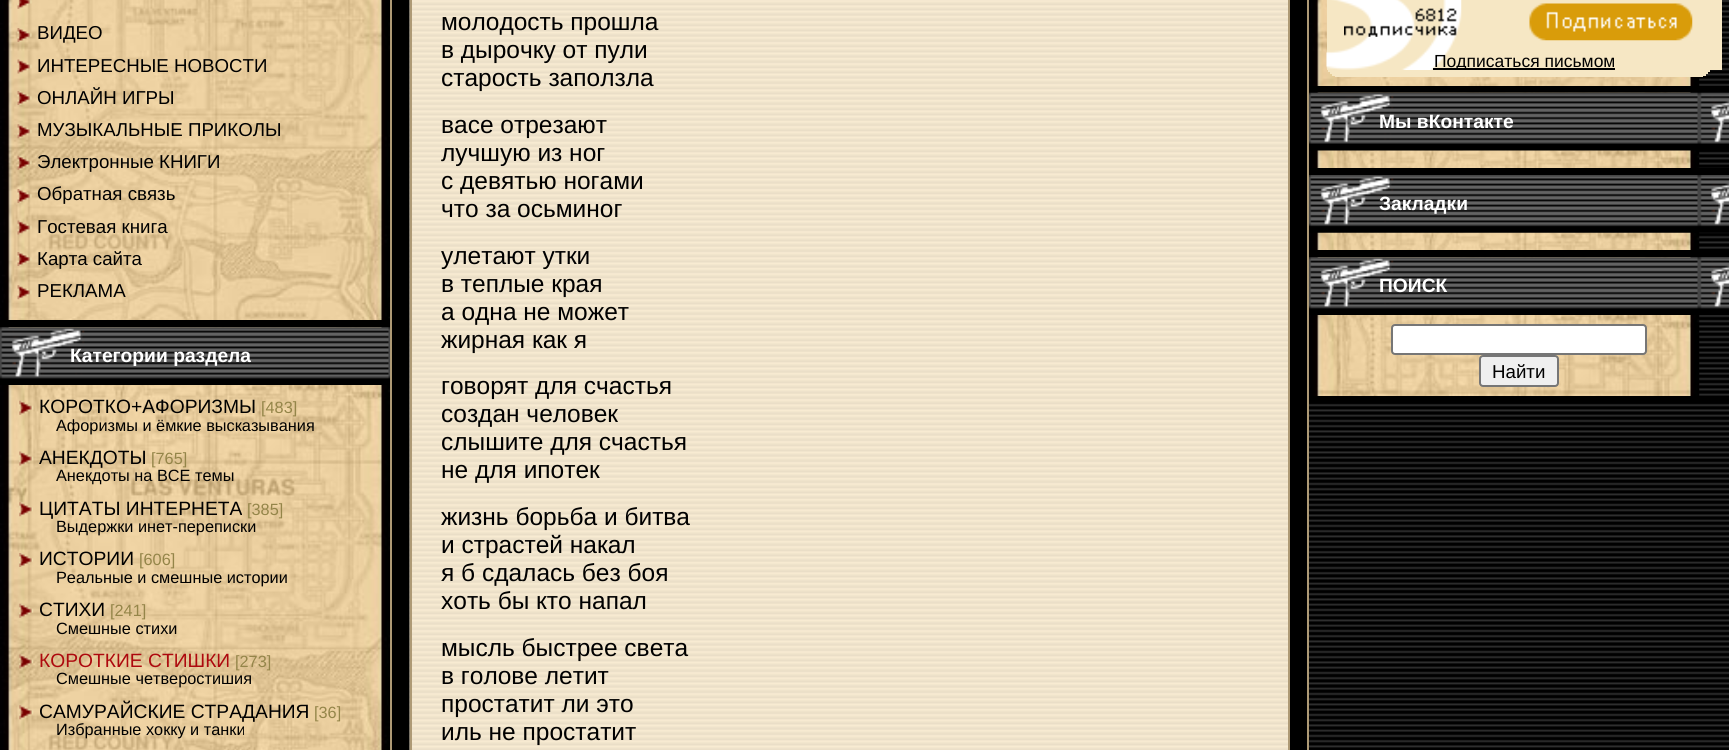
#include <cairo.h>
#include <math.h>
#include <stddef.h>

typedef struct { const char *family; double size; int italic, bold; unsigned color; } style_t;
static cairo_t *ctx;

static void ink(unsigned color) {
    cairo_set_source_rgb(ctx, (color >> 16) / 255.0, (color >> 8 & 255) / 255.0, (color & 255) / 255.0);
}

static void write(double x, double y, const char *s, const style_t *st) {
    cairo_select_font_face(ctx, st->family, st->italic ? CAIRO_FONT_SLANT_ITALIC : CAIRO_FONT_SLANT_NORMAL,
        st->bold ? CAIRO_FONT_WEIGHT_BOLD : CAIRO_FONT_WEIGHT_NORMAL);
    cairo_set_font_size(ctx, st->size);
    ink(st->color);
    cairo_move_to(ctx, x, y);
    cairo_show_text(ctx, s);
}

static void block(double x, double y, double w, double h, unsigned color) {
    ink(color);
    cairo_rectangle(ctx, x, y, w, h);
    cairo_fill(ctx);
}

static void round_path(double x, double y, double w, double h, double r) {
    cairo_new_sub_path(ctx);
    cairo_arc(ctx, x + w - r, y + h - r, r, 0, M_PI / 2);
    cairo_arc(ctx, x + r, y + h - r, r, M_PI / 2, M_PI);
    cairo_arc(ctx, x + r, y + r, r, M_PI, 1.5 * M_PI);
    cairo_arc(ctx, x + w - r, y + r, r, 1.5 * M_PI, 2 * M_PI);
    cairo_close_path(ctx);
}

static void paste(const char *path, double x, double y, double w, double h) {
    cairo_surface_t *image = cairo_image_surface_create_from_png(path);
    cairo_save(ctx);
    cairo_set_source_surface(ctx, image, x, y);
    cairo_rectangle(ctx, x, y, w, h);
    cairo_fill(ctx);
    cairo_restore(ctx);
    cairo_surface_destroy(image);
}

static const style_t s1 = {"Liberation Sans", 18.7, 0, 0, 0x000000};
static const style_t s2 = {"Liberation Sans", 19.25, 0, 1, 0xffffff};
static const style_t s3 = {"Liberation Sans", 19.25, 0, 0, 0x000000};
static const style_t s4 = {"Liberation Sans", 16.3, 0, 0, 0x948549};
static const style_t s5 = {"Liberation Sans", 16.3, 0, 0, 0x000000};
static const style_t s6 = {"Liberation Sans", 19.25, 0, 0, 0xad090e};
static const style_t s7 = {"Liberation Sans", 24.5, 0, 0, 0x000000};
static const style_t s8 = {"Liberation Sans", 17.5, 0, 0, 0x000000};

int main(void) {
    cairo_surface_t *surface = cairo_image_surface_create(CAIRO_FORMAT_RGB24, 1729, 750);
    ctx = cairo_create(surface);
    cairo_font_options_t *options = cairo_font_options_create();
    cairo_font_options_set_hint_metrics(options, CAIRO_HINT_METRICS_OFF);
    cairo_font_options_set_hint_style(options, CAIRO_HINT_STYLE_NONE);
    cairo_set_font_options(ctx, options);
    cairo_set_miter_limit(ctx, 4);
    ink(0xffffff);
    cairo_paint(ctx);
    paste("pic1.png", 0, 0, 1729, 750);
    paste("pic2.png", 0, 0, 390, 328);
    block(0, 320, 390, 7, 0x000000);
    paste("pic3.png", 17, 0, 15, 9);
    paste("pic4.png", 17, 28, 15, 14);
    write(37, 39, "ВИДЕО", &s1);
    paste("pic5.png", 17, 59, 15, 15);
    write(37, 72, "ИНТЕРЕСНЫЕ НОВОСТИ", &s1);
    paste("pic6.png", 17, 91, 15, 14);
    write(37, 104, "ОНЛАЙН ИГРЫ", &s1);
    paste("pic7.png", 17, 124, 15, 15);
    write(37, 136, "МУЗЫКАЛЬНЫЕ ПРИКОЛЫ", &s1);
    paste("pic8.png", 17, 155, 15, 15);
    write(37, 168, "Электронные КНИГИ", &s1);
    paste("pic9.png", 17, 189, 15, 14);
    write(37, 200, "Обратная связь", &s1);
    paste("pic10.png", 17, 220, 15, 15);
    write(37, 233, "Гостевая книга", &s1);
    paste("pic11.png", 17, 252, 15, 14);
    write(37, 265, "Карта сайта", &s1);
    paste("pic12.png", 17, 285, 15, 15);
    write(37, 297, "РЕКЛАМА", &s1);
    paste("pic13.png", 0, 327, 390, 423);
    paste("pic14.png", 0, 327, 390, 58);
    write(70, 362, "Категории раздела", &s2);
    paste("pic15.png", 19, 400, 15, 15);
    write(39, 413, "КОРОТКО+АФОРИЗМЫ", &s3);
    write(261, 413, "[483]", &s4);
    write(56, 431, "Афоризмы и ёмкие высказывания", &s5);
    paste("pic16.png", 19, 451, 15, 15);
    write(39, 464, "АНЕКДОТЫ", &s3);
    write(151, 464, "[765]", &s4);
    write(56, 481, "Анекдоты на ВСЕ темы", &s5);
    paste("pic17.png", 19, 502, 14, 15);
    write(39, 515, "ЦИТАТЫ ИНТЕРНЕТА", &s3);
    write(247, 515, "[385]", &s4);
    write(56, 532, "Выдержки инет-переписки", &s5);
    paste("pic18.png", 19, 553, 15, 14);
    write(39, 565, "ИСТОРИИ", &s3);
    write(139, 565, "[606]", &s4);
    write(56, 583, "Реальные и смешные истории", &s5);
    paste("pic19.png", 19, 603, 15, 15);
    write(39, 616, "СТИХИ", &s3);
    write(110, 616, "[241]", &s4);
    write(56, 634, "Смешные стихи", &s5);
    paste("pic20.png", 19, 654, 15, 15);
    write(39, 667, "КОРОТКИЕ СТИШКИ", &s6);
    write(235, 667, "[273]", &s4);
    write(56, 684, "Смешные четверостишия", &s5);
    paste("pic21.png", 19, 705, 15, 15);
    write(39, 718, "САМУРАЙСКИЕ СТРАДАНИЯ", &s3);
    write(314, 718, "[36]", &s4);
    write(56, 735, "Избpанные хоккy и танки", &s5);
    block(392, 0, 915, 748, 0x000000);
    cairo_rectangle(ctx, 391, -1, 917, 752);
    ink(0xae9a75);
    cairo_stroke(ctx);
    paste("pic22.png", 409, 0, 879, 750);
    cairo_rectangle(ctx, 411, -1, 878, 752);
    cairo_stroke(ctx);
    write(441, 30, "молодость прошла", &s7);
    write(441, 58, "в дырочку от пули", &s7);
    write(441, 86, "старость заползла", &s7);
    write(441, 133, "васе отрезают", &s7);
    write(441, 161, "лучшую из ног", &s7);
    write(441, 189, "с девятью ногами", &s7);
    write(441, 217, "что за осьминог", &s7);
    write(441, 264, "улетают утки", &s7);
    write(441, 292, "в теплые края", &s7);
    write(441, 320, "а одна не может", &s7);
    write(441, 348, "жирная как я", &s7);
    write(441, 394, "говорят для счастья", &s7);
    write(441, 422, "создан человек", &s7);
    write(441, 450, "слышите для счастья", &s7);
    write(441, 478, "не для ипотек", &s7);
    write(441, 525, "жизнь борьба и битва", &s7);
    write(441, 553, "и страстей накал", &s7);
    write(441, 581, "я б сдалась без боя", &s7);
    write(441, 609, "хоть бы кто напал", &s7);
    write(441, 656, "мысль быстрее света", &s7);
    write(441, 684, "в голове летит", &s7);
    write(441, 712, "простатит ли это", &s7);
    write(441, 740, "иль не простатит", &s7);
    paste("pic23.png", 1309, 0, 391, 86);
    block(1309, 86, 420, 6, 0x000000);
    block(1327, 0, 395, 70, 0xf6e7c4);
    paste("pic24.png", 1326, 0, 136, 70);
    paste("pic25.png", 1344, 8, 113, 29);
    paste("pic26.png", 1529, 3, 164, 38);
    block(1433, 68, 182, 2, 0x000000);
    write(1434, 67, "Подписаться письмом", &s8);
    block(1328, 70, 382, 2, 0xf6e7c4);
    block(1330, 72, 378, 2, 0xf6e7c4);
    block(1332, 74, 374, 2, 0xf6e7c4);
    block(1335, 76, 368, 1, 0xf6e7c4);
    paste("pic27.png", 1309, 92, 391, 76);
    block(1309, 168, 420, 7, 0x000000);
    paste("pic28.png", 1309, 92, 420, 59);
    write(1379, 128, "Мы вКонтакте", &s2);
    paste("pic29.png", 1309, 232, 391, 26);
    block(1309, 250, 420, 7, 0x000000);
    paste("pic30.png", 1309, 175, 420, 58);
    write(1379, 210, "Закладки", &s2);
    paste("pic31.png", 1309, 257, 391, 139);
    block(1309, 398, 420, 4, 0x000000);
    paste("pic32.png", 1309, 257, 420, 58);
    write(1379, 292, "ПОИСК", &s2);
    round_path(1392, 325, 254, 29, 3);
    cairo_fill_preserve(ctx);
    ink(0x767676);
    cairo_stroke(ctx);
    ink(0xefefef);
    round_path(1480, 356, 78, 30, 3);
    cairo_fill_preserve(ctx);
    ink(0x767676);
    cairo_stroke(ctx);
    write(1492, 378, "Найти", &s1);
    cairo_surface_write_to_png(surface, "screenshot.png");
    cairo_font_options_destroy(options);
    cairo_destroy(ctx);
    cairo_surface_destroy(surface);
    return 0;
}
